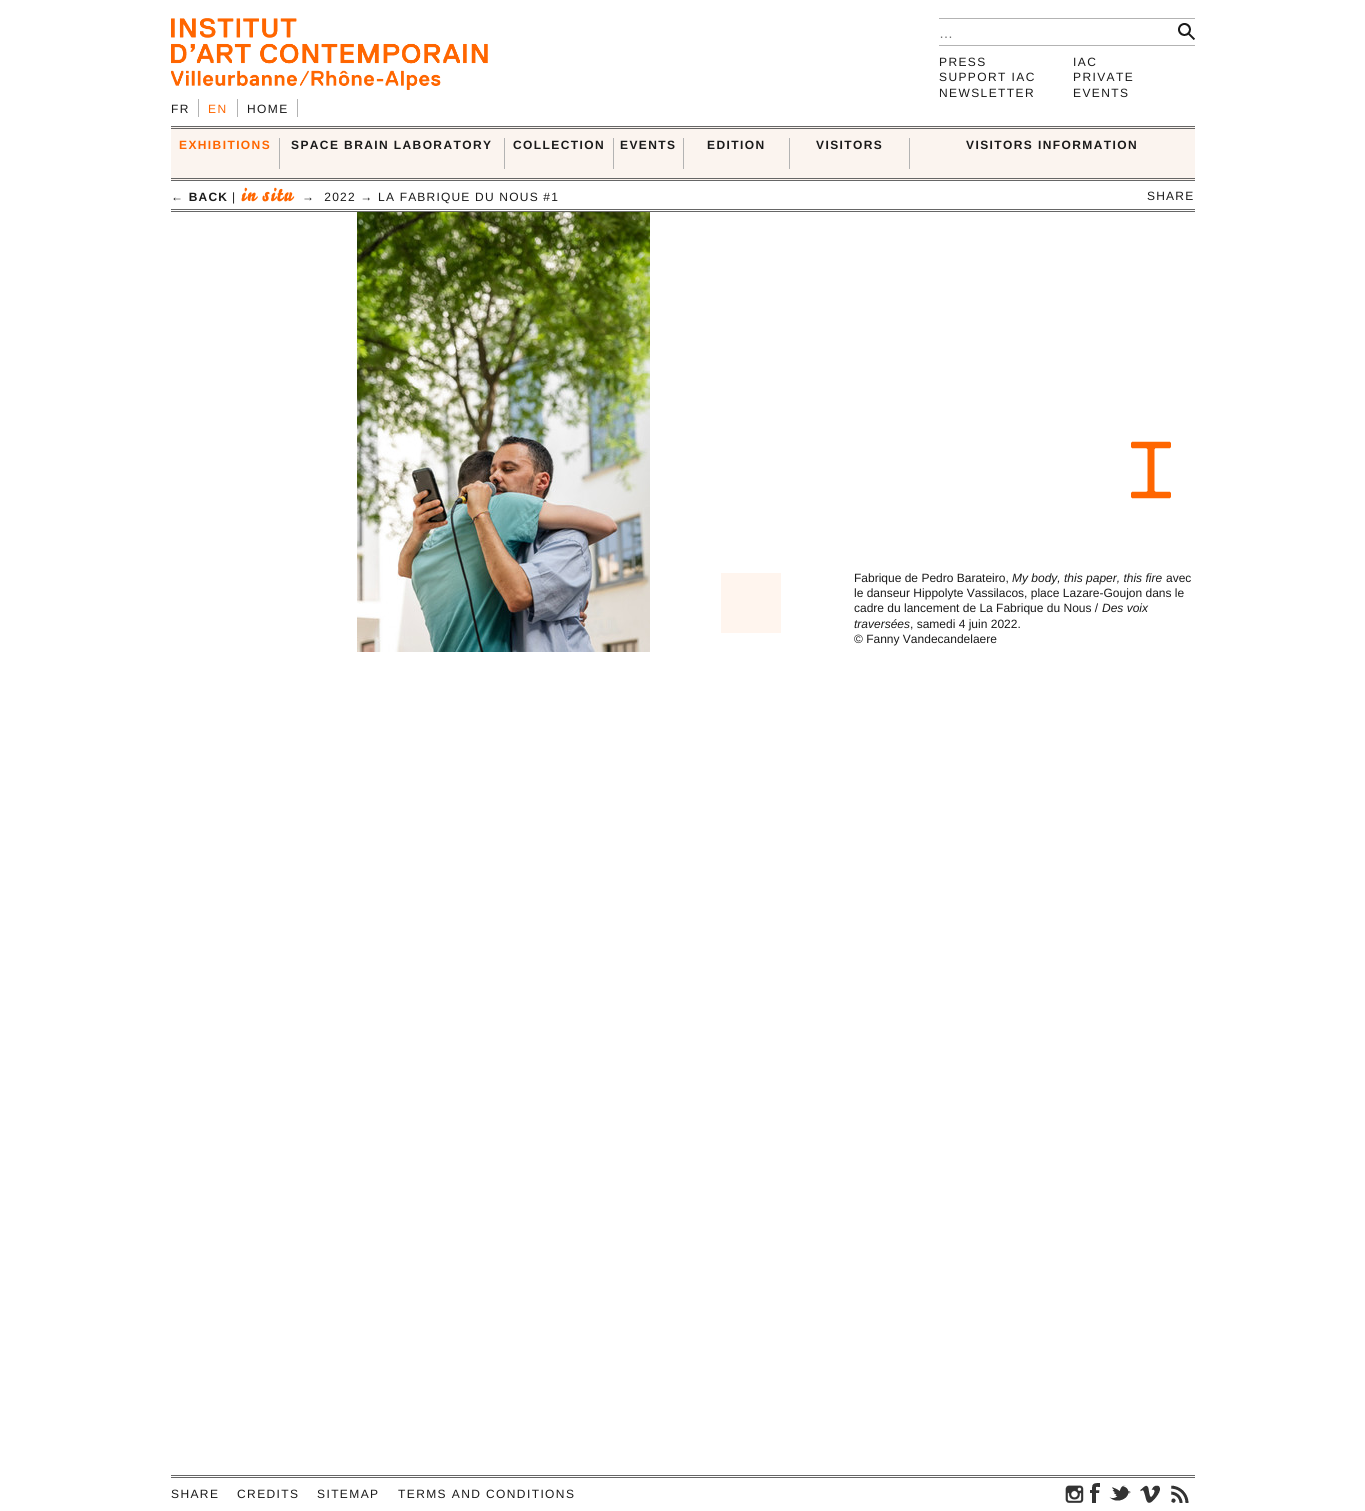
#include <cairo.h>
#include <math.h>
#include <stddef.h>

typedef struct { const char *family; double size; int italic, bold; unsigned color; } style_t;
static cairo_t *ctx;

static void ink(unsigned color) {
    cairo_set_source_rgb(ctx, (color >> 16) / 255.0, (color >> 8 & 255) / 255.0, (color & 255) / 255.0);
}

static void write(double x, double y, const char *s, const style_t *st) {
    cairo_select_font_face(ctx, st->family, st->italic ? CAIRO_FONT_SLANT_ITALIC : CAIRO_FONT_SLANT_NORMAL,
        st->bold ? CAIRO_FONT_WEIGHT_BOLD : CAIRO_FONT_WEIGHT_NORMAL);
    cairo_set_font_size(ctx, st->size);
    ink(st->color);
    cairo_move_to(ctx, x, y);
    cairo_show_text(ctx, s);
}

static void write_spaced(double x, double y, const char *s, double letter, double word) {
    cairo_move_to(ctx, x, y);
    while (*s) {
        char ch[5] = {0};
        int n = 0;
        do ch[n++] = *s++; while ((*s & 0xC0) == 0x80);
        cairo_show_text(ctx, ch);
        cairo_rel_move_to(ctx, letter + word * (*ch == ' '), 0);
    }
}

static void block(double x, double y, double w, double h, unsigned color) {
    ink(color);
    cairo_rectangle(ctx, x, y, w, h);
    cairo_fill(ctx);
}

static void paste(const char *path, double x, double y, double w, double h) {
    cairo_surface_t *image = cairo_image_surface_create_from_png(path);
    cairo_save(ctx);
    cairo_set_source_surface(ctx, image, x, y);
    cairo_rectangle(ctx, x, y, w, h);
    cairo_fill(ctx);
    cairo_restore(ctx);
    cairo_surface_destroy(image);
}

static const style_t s1 = {"Liberation Sans", 14, 0, 0, 0x757575};
static const style_t s2 = {"Liberation Sans", 12, 0, 0, 0x1a1a1a};
static const style_t s3 = {"Liberation Sans", 12, 1, 0, 0x1a1a1a};

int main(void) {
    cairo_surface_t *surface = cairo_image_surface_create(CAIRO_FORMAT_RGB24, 1365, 1511);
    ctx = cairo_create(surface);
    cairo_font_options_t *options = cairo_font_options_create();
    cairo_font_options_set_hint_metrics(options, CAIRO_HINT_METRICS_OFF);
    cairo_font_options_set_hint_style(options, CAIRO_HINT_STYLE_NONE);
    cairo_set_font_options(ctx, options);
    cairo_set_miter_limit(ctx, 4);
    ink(0xffffff);
    cairo_paint(ctx);
    paste("pic1.png", 171, 18, 317, 72);
    block(939, 18, 256, 1, 0xb3b3b3);
    block(939, 45, 256, 1, 0xb3b3b3);
    write(939, 38, "…", &s1);
    block(1178, 23, 17, 17, 0x1a1a1a);
    paste("pic2.png", 1178, 23, 17, 17);
    block(297, 99, 1, 18, 0xb3b3b3);
    cairo_set_font_size(ctx, 12);
    ink(0x1a1a1a);
    write_spaced(171, 113, "FR", 1.4, 0);
    block(198, 99, 1, 18, 0xb3b3b3);
    ink(0xff6600);
    write_spaced(208, 113, "EN", 1.4, 0);
    block(237, 99, 1, 18, 0xb3b3b3);
    ink(0x1a1a1a);
    write_spaced(247, 113, "HOME", 1.4, 0);
    write_spaced(939, 66, "PRESS", 1.4, 0);
    write_spaced(939, 81, "SUPPORT IAC", 1.4, 0);
    write_spaced(939, 97, "NEWSLETTER", 1.4, 0);
    write_spaced(1073, 66, "IAC", 1.4, 0);
    write_spaced(1073, 81, "PRIVATE", 1.4, 0);
    write_spaced(1073, 97, "EVENTS", 1.4, 0);
    block(171, 127, 1024, 53, 0xfbf4ef);
    block(171, 126, 1024, 1, 0x666666);
    block(171, 128, 1024, 1, 0x666666);
    block(171, 178, 1024, 1, 0x666666);
    block(171, 180, 1024, 1, 0x666666);
    cairo_select_font_face(ctx, "Liberation Sans", CAIRO_FONT_SLANT_NORMAL, CAIRO_FONT_WEIGHT_BOLD);
    ink(0xff6600);
    write_spaced(179, 149, "EXHIBITIONS", 1.4, 0);
    block(279, 138, 1, 31, 0xb3b3b3);
    ink(0x1a1a1a);
    write_spaced(291, 149, "SPACE BRAIN LABORATORY", 1.4, 0);
    block(504, 138, 1, 31, 0xb3b3b3);
    ink(0x1a1a1a);
    write_spaced(513, 149, "COLLECTION", 1.4, 0);
    block(613, 138, 1, 31, 0xb3b3b3);
    ink(0x1a1a1a);
    write_spaced(620, 149, "EVENTS", 1.4, 0);
    block(683, 138, 1, 31, 0xb3b3b3);
    ink(0x1a1a1a);
    write_spaced(707, 149, "EDITION", 1.4, 0);
    block(789, 138, 1, 31, 0xb3b3b3);
    ink(0x1a1a1a);
    write_spaced(816, 149, "VISITORS", 1.4, 0);
    block(909, 138, 1, 31, 0xb3b3b3);
    ink(0x1a1a1a);
    write_spaced(966, 149, "VISITORS INFORMATION", 1.4, 0);
    block(171, 209, 1024, 1, 0x666666);
    block(171, 211, 1024, 1, 0x666666);
    ink(0x1a1a1a);
    write_spaced(171, 201, "← BACK", 1.2, 0);
    cairo_select_font_face(ctx, "Liberation Sans", CAIRO_FONT_SLANT_NORMAL, CAIRO_FONT_WEIGHT_NORMAL);
    write_spaced(232, 201, "|", 1.2, 0);
    cairo_select_font_face(ctx, "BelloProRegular", CAIRO_FONT_SLANT_NORMAL, CAIRO_FONT_WEIGHT_NORMAL);
    cairo_set_font_size(ctx, 19);
    ink(0xff6600);
    write_spaced(241, 201, "in situ", 1.2, 0);
    cairo_select_font_face(ctx, "Liberation Sans", CAIRO_FONT_SLANT_NORMAL, CAIRO_FONT_WEIGHT_NORMAL);
    cairo_set_font_size(ctx, 12);
    ink(0x1a1a1a);
    write_spaced(302, 201, "→  2022 → LA FABRIQUE DU NOUS #1", 1.2, 0);
    write_spaced(1147, 200, "SHARE", 1.2, 0);
    paste("pic3.png", 357, 212, 293, 440);
    write(854, 582, "Fabrique de Pedro Barateiro,", &s2);
    write(1012, 582, "My body, this paper, this fire", &s3);
    write(1166, 582, "avec", &s2);
    write(854, 597, "le danseur Hippolyte Vassilacos, place Lazare-Goujon dans le", &s2);
    write(854, 612, "cadre du lancement de La Fabrique du Nous /", &s2);
    write(1102, 612, "Des voix", &s3);
    write(854, 628, "traversées", &s3);
    write(910, 628, ", samedi 4 juin 2022.", &s2);
    write(854, 643, "© Fanny Vandecandelaere", &s2);
    block(1131, 441, 40, 58, 0xff6600);
    paste("pic4.png", 1121, 440, 60, 60);
    block(721, 573, 60, 60, 0xfff5ee);
    block(171, 1475, 1024, 1, 0x666666);
    block(171, 1477, 1024, 1, 0x666666);
    ink(0x1a1a1a);
    write_spaced(171, 1498, "SHARE", 1.4, 0);
    write_spaced(237, 1498, "CREDITS", 1.4, 0);
    write_spaced(317, 1498, "SITEMAP", 1.4, 0);
    write_spaced(398, 1498, "TERMS AND CONDITIONS", 1.4, 0);
    block(1065, 1485, 19, 18, 0x333333);
    paste("pic5.png", 1065, 1478, 20, 30);
    block(1090, 1483, 10, 20, 0x333333);
    paste("pic6.png", 1085, 1478, 20, 30);
    block(1109, 1485, 22, 16, 0x333333);
    paste("pic7.png", 1105, 1478, 30, 30);
    block(1140, 1485, 20, 18, 0x333333);
    paste("pic8.png", 1135, 1478, 30, 30);
    block(1171, 1485, 18, 18, 0x333333);
    paste("pic9.png", 1165, 1478, 30, 30);
    cairo_surface_write_to_png(surface, "screenshot.png");
    cairo_font_options_destroy(options);
    cairo_destroy(ctx);
    cairo_surface_destroy(surface);
    return 0;
}
